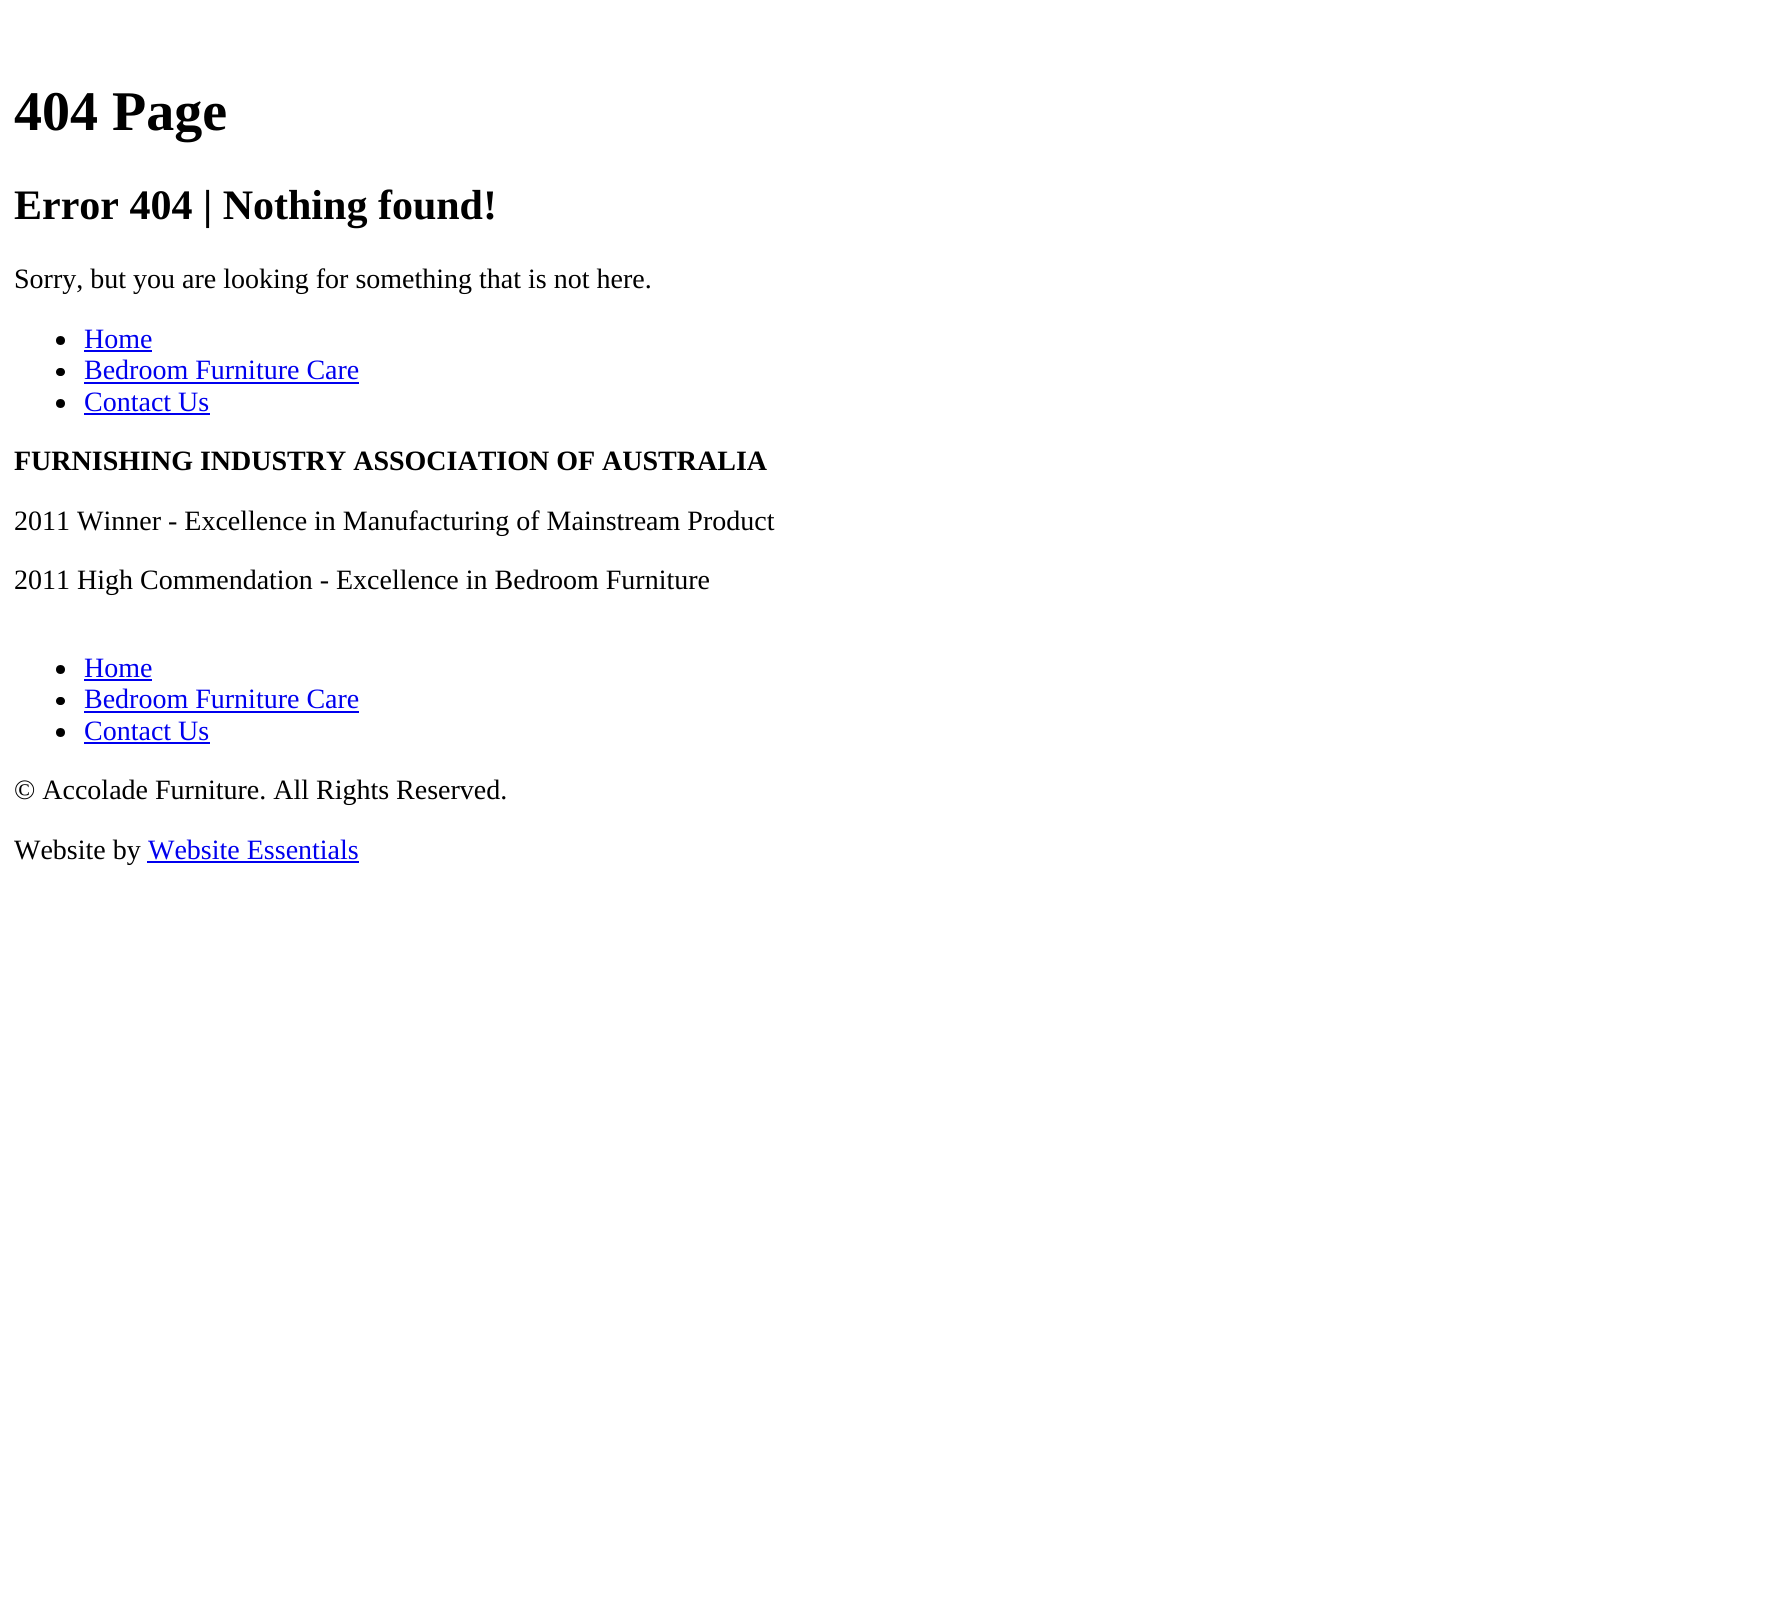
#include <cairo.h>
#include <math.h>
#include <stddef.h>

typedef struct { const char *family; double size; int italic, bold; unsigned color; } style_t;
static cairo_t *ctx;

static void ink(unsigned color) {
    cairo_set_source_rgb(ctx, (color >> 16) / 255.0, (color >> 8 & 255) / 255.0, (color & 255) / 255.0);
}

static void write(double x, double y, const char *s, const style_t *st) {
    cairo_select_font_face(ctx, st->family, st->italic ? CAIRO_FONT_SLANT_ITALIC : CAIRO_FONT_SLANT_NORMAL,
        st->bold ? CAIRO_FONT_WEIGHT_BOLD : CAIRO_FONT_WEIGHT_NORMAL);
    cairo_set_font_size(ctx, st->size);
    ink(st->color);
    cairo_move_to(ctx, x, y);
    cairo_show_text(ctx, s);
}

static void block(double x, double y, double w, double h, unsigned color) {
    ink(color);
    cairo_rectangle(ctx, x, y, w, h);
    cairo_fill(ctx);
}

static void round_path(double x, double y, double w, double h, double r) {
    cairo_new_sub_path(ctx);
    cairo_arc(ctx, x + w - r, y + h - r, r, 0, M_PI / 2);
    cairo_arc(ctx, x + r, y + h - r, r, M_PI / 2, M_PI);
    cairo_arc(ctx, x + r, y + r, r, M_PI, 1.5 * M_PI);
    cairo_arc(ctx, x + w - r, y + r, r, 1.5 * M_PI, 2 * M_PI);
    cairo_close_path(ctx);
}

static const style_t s1 = {"Liberation Serif", 56, 0, 1, 0x000000};
static const style_t s2 = {"Liberation Serif", 42, 0, 1, 0x000000};
static const style_t s3 = {"Liberation Serif", 28, 0, 0, 0x000000};
static const style_t s4 = {"Liberation Serif", 28, 0, 0, 0x0000ee};
static const style_t s5 = {"Liberation Serif", 28, 0, 1, 0x000000};

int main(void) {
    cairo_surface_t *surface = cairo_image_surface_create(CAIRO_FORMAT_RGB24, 1789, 1604);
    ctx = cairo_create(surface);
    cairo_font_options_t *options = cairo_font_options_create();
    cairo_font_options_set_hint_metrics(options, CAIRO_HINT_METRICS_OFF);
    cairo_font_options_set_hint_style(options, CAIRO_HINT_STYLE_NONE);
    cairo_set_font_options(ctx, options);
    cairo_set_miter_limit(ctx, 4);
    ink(0xffffff);
    cairo_paint(ctx);
    write(14, 130, "404 Page", &s1);
    write(14, 219, "Error 404 | Nothing found!", &s2);
    write(14, 288, "Sorry, but you are looking for something that is not here.", &s3);
    cairo_new_path(ctx);
    cairo_arc(ctx, 60.5, 340.5, 4.5, 0, 2 * M_PI);
    cairo_fill(ctx);
    write(84, 348, "Home", &s4);
    block(84, 350, 68, 2, 0x0000ee);
    ink(0x000000);
    round_path(56, 368, 9, 8, 4);
    cairo_fill(ctx);
    write(84, 379, "Bedroom Furniture Care", &s4);
    block(84, 382, 275, 2, 0x0000ee);
    ink(0x000000);
    cairo_new_path(ctx);
    cairo_arc(ctx, 60.5, 403.5, 4.5, 0, 2 * M_PI);
    cairo_fill(ctx);
    write(84, 411, "Contact Us", &s4);
    block(84, 413, 126, 2, 0x0000ee);
    write(14, 470, "FURNISHING INDUSTRY ASSOCIATION OF AUSTRALIA", &s5);
    write(14, 530, "2011 Winner - Excellence in Manufacturing of Mainstream Product", &s3);
    write(14, 589, "2011 High Commendation - Excellence in Bedroom Furniture", &s3);
    cairo_new_path(ctx);
    cairo_arc(ctx, 60.5, 669.5, 4.5, 0, 2 * M_PI);
    cairo_fill(ctx);
    write(84, 677, "Home", &s4);
    block(84, 679, 68, 2, 0x0000ee);
    ink(0x000000);
    round_path(56, 697, 9, 8, 4);
    cairo_fill(ctx);
    write(84, 708, "Bedroom Furniture Care", &s4);
    block(84, 711, 275, 2, 0x0000ee);
    ink(0x000000);
    cairo_new_path(ctx);
    cairo_arc(ctx, 60.5, 732.5, 4.5, 0, 2 * M_PI);
    cairo_fill(ctx);
    write(84, 740, "Contact Us", &s4);
    block(84, 742, 126, 2, 0x0000ee);
    write(14, 799, "© Accolade Furniture. All Rights Reserved.", &s3);
    write(14, 859, "Website by", &s3);
    write(148, 859, "Website Essentials", &s4);
    block(147, 861, 212, 2, 0x0000ee);
    cairo_surface_write_to_png(surface, "screenshot.png");
    cairo_font_options_destroy(options);
    cairo_destroy(ctx);
    cairo_surface_destroy(surface);
    return 0;
}
